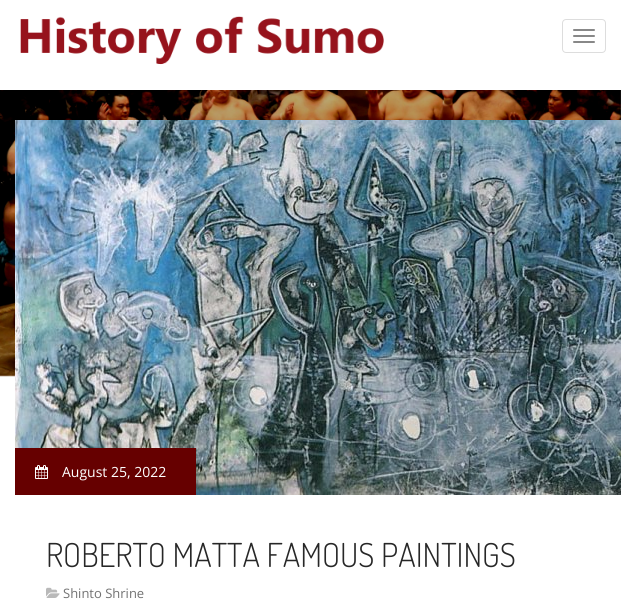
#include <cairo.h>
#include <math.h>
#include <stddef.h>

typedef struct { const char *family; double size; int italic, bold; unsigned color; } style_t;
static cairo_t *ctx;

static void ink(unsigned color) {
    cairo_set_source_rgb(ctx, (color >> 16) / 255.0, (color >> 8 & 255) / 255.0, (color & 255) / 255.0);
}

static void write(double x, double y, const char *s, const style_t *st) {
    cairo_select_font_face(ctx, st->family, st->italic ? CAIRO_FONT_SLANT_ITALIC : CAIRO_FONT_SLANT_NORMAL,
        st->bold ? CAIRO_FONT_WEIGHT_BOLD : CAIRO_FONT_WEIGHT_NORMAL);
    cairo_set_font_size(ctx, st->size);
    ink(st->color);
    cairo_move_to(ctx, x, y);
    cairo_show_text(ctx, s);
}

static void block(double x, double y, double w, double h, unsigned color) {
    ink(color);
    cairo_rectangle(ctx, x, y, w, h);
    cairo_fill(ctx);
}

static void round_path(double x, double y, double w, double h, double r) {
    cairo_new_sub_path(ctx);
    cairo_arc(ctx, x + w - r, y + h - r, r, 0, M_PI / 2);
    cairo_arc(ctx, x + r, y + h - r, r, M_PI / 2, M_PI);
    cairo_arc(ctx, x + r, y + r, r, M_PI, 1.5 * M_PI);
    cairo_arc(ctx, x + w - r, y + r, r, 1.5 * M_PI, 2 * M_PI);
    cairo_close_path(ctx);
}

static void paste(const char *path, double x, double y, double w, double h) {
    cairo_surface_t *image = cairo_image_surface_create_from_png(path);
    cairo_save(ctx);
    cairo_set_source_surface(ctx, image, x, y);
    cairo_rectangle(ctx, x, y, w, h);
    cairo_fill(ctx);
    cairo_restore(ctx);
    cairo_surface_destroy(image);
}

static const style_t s1 = {"Open Sans", 14, 0, 0, 0xffffff};
static const style_t s2 = {"Dosis Light", 33, 0, 0, 0x272727};
static const style_t s3 = {"Open Sans", 13, 0, 0, 0x727272};

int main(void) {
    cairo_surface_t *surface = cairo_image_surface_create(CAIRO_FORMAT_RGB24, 621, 600);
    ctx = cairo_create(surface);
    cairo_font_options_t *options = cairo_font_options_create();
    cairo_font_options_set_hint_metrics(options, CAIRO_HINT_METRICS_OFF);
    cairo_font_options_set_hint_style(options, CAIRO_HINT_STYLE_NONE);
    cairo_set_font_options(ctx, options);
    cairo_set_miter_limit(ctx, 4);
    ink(0xffffff);
    cairo_paint(ctx);
    paste("pic1.png", 20, 16, 364, 49);
    round_path(562.5, 19.5, 43, 33, 3.5);
    ink(0xdddddd);
    cairo_set_line_width(ctx, 1);
    cairo_stroke(ctx);
    ink(0x888888);
    round_path(573, 29, 22, 2, 1);
    cairo_fill(ctx);
    round_path(573, 35, 22, 2, 1);
    cairo_fill(ctx);
    round_path(573, 41, 22, 2, 1);
    cairo_fill(ctx);
    paste("pic2.png", 0, 90, 621, 287);
    paste("pic3.png", 15, 120, 606, 375);
    block(15, 448, 181, 47, 0x660000);
    paste("pic4.png", 35, 465, 13, 14);
    write(62, 477, "August 25, 2022", &s1);
    write(46, 567, "ROBERTO MATTA FAMOUS PAINTINGS", &s2);
    paste("pic5.png", 46, 587, 14, 11);
    write(63, 598, "Shinto Shrine", &s3);
    cairo_surface_write_to_png(surface, "screenshot.png");
    cairo_font_options_destroy(options);
    cairo_destroy(ctx);
    cairo_surface_destroy(surface);
    return 0;
}
